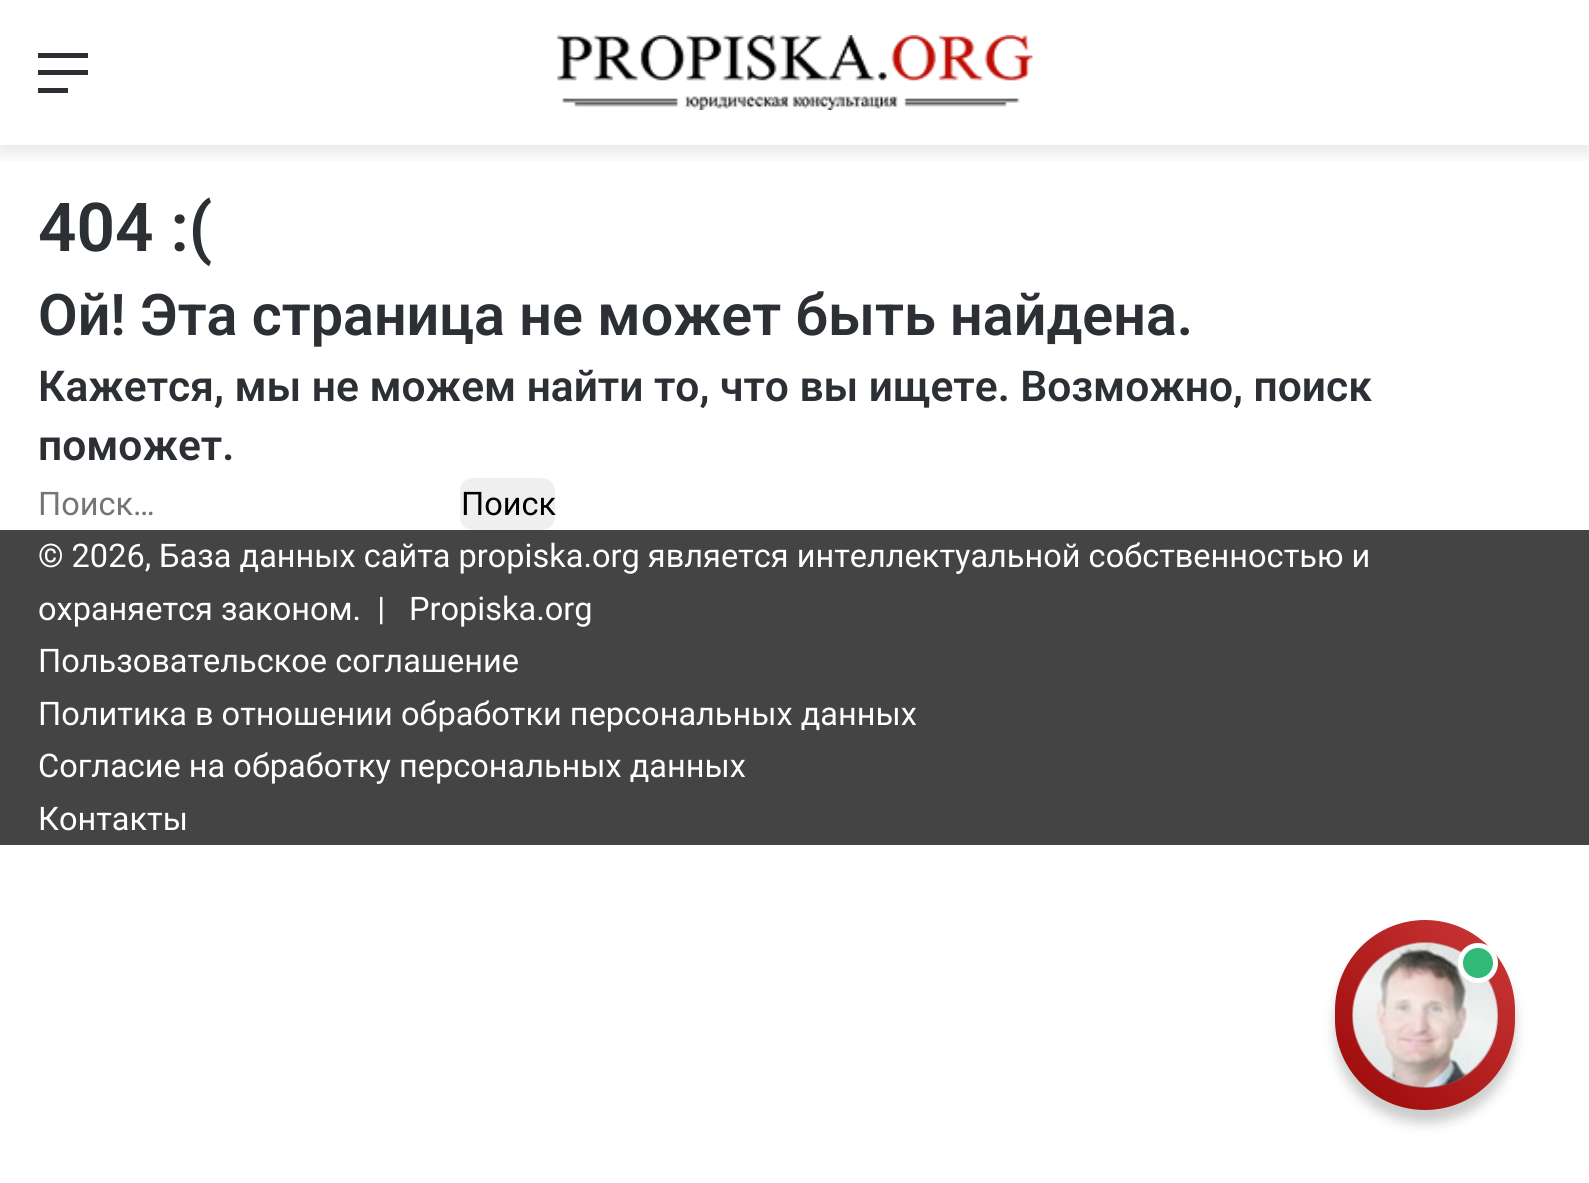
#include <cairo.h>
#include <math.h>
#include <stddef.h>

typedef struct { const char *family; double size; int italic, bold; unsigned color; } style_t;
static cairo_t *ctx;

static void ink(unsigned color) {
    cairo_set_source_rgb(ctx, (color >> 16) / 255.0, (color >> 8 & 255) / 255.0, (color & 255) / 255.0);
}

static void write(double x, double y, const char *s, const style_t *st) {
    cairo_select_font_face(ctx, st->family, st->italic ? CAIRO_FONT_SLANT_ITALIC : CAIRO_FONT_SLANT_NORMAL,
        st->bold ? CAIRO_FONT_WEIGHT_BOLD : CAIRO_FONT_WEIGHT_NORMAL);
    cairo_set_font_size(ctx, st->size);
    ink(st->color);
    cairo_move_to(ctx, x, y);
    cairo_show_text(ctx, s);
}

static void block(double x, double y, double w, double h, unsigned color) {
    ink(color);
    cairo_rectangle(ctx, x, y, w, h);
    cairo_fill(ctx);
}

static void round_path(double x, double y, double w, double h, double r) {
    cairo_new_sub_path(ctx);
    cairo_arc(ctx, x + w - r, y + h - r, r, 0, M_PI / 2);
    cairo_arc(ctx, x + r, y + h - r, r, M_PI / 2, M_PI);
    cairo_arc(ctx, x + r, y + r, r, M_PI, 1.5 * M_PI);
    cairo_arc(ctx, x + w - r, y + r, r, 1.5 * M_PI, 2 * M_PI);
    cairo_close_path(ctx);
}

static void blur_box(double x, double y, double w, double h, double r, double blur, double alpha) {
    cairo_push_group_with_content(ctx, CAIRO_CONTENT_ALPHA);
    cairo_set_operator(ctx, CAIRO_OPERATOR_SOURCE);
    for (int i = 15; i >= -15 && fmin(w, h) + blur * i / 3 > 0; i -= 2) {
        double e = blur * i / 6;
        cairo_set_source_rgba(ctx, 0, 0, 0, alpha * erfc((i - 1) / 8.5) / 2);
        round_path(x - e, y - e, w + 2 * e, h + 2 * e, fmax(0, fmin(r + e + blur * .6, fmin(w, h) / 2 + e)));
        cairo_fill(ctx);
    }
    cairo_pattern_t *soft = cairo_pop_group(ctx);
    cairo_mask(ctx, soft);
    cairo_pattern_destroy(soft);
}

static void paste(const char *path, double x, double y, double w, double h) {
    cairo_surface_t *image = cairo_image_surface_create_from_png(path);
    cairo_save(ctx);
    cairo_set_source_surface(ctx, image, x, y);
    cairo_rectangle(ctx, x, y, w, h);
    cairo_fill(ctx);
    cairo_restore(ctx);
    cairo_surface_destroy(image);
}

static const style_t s1 = {"Roboto SemiBold", 67.5, 0, 0, 0x2c2f34};
static const style_t s2 = {"Roboto SemiBold", 57.5, 0, 0, 0x2c2f34};
static const style_t s3 = {"Roboto SemiBold", 42.5, 0, 0, 0x2c2f34};
static const style_t s4 = {"Roboto", 32.5, 0, 0, 0x757575};
static const style_t s5 = {"Roboto", 32.5, 0, 0, 0x000000};
static const style_t s6 = {"Roboto", 32.5, 0, 0, 0xffffff};

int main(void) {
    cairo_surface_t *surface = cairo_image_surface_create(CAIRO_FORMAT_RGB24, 1589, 1183);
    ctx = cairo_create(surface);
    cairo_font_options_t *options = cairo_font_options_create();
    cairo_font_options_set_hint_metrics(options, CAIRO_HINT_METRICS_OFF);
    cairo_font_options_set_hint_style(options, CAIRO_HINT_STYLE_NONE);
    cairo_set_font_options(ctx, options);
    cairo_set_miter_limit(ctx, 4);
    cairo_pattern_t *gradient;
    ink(0xffffff);
    cairo_paint(ctx);
    cairo_save(ctx);
    cairo_rectangle(ctx, 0, 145, 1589, 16);
    cairo_clip(ctx);
    ink(0x000000);
    blur_box(0, 8, 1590, 145, 0, 9, 0.1);
    cairo_restore(ctx);
    block(38, 70, 50, 5, 0x2c2f34);
    block(38, 53, 50, 5, 0x2c2f34);
    block(38, 88, 30, 5, 0x2c2f34);
    paste("pic1.png", 557, 35, 476, 75);
    write(38, 251, "404 :(", &s1);
    write(38, 335, "Ой! Эта страница не может быть найдена.", &s2);
    write(38, 401, "Кажется, мы не можем найти то, что вы ищете. Возможно, поиск", &s3);
    write(38, 460, "поможет.", &s3);
    write(38, 515, "Поиск…", &s4);
    ink(0xefefef);
    round_path(460, 478, 95, 52, 13);
    cairo_fill(ctx);
    write(461, 515, "Поиск", &s5);
    block(0, 530, 1589, 315, 0x444444);
    write(38, 567, "© 2026, База данных сайта propiska.org является интеллектуальной собственностью и", &s6);
    write(38, 620, "охраняется законом.  |", &s6);
    write(409, 620, "Propiska.org", &s6);
    write(38, 672, "Пользовательское соглашение", &s6);
    write(38, 725, "Политика в отношении обработки персональных данных", &s6);
    write(38, 777, "Согласие на обработку персональных данных", &s6);
    write(38, 830, "Контакты", &s6);
    ink(0x000000);
    blur_box(1335, 933, 180, 190, 90, 6, 0.2);
    gradient = cairo_pattern_create_linear(1518, 923, 1333, 1108);
    cairo_pattern_add_color_stop_rgba(gradient, 0, 0.8, 0.224, 0.224, 1);
    cairo_pattern_add_color_stop_rgba(gradient, 1, 0.604, 0.027, 0.027, 1);
    cairo_set_source(ctx, gradient);
    cairo_pattern_destroy(gradient);
    round_path(1335, 920, 180, 190, 90);
    cairo_fill(ctx);
    cairo_set_source_rgba(ctx, 0, 0, 0, 0.25);
    cairo_arc(ctx, 1425.5, 1015.5, 72.5, 0, 2 * M_PI);
    cairo_fill(ctx);
    paste("pic2.png", 1352, 942, 146, 146);
    gradient = cairo_pattern_create_linear(1450, 956, 1400, 1092);
    cairo_pattern_add_color_stop_rgba(gradient, 0, 1, 1, 1, 0);
    cairo_pattern_add_color_stop_rgba(gradient, 0.4, 1, 1, 1, 0.6);
    cairo_pattern_add_color_stop_rgba(gradient, 0.6, 1, 1, 1, 0.36);
    cairo_pattern_add_color_stop_rgba(gradient, 1, 1, 1, 1, 0);
    cairo_set_source(ctx, gradient);
    cairo_pattern_destroy(gradient);
    cairo_new_path(ctx);
    cairo_move_to(ctx, 1416, 944);
    cairo_line_to(ctx, 1478, 966);
    cairo_curve_to(ctx, 1491, 979, 1498, 996, 1498, 1016);
    cairo_curve_to(ctx, 1498, 1056, 1466, 1088, 1426, 1088);
    cairo_curve_to(ctx, 1385, 1088, 1353, 1056, 1353, 1016);
    cairo_curve_to(ctx, 1353, 979, 1381, 948, 1416, 944);
    cairo_close_path(ctx);
    cairo_fill(ctx);
    ink(0x31b978);
    cairo_arc(ctx, 1478, 963, 17.5, 0, 2 * M_PI);
    cairo_fill_preserve(ctx);
    ink(0xffffff);
    cairo_set_line_width(ctx, 5);
    cairo_stroke(ctx);
    cairo_surface_write_to_png(surface, "screenshot.png");
    cairo_font_options_destroy(options);
    cairo_destroy(ctx);
    cairo_surface_destroy(surface);
    return 0;
}
